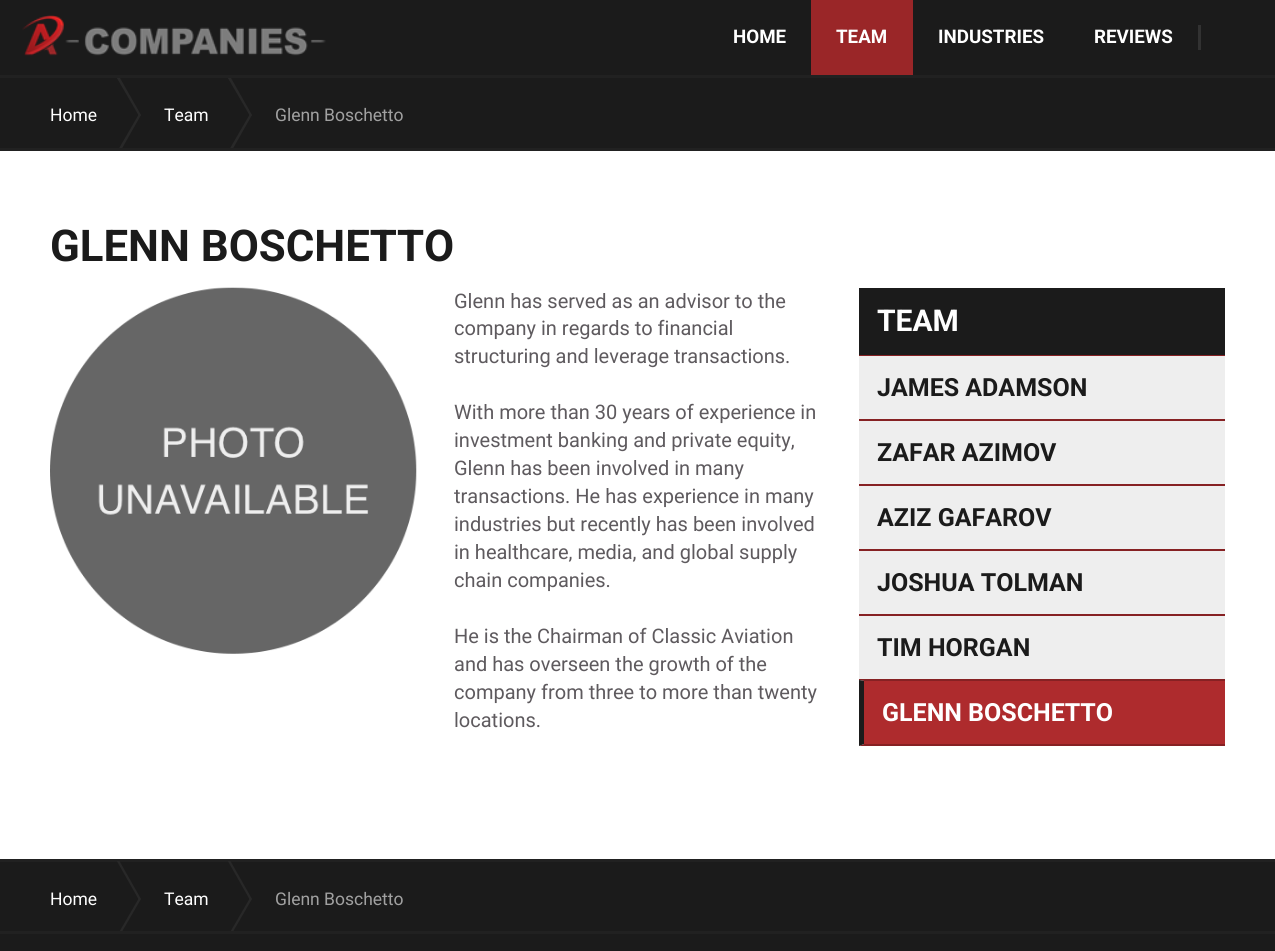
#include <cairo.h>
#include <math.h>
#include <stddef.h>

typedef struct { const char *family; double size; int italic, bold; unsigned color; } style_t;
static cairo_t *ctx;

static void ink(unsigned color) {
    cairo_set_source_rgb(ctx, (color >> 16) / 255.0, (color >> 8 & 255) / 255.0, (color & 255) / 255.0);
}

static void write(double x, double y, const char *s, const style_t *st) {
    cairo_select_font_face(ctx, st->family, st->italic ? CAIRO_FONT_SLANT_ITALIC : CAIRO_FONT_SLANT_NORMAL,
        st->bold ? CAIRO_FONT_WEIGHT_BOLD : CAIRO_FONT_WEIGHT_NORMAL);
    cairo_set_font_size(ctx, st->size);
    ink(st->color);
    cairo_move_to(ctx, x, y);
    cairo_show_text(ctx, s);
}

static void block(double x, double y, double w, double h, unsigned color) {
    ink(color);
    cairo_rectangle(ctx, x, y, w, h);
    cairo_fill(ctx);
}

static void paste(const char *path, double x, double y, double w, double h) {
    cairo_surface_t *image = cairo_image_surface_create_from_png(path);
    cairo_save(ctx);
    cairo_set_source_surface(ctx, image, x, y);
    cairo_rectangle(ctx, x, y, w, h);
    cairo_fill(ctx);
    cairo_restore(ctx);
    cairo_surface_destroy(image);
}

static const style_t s1 = {"Roboto", 18.75, 0, 1, 0xffffff};
static const style_t s2 = {"Roboto", 17.5, 0, 0, 0xffffff};
static const style_t s3 = {"Roboto", 17.5, 0, 0, 0xa1a1a1};
static const style_t s4 = {"Roboto", 43.75, 0, 1, 0x1b1b1b};
static const style_t s5 = {"Roboto", 20, 0, 0, 0x5e5a5e};
static const style_t s6 = {"Roboto", 30, 0, 1, 0xffffff};
static const style_t s7 = {"Roboto", 25, 0, 1, 0x1b1b1b};
static const style_t s8 = {"Roboto", 25, 0, 1, 0xffffff};

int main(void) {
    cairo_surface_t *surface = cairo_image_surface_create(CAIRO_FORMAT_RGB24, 1275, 951);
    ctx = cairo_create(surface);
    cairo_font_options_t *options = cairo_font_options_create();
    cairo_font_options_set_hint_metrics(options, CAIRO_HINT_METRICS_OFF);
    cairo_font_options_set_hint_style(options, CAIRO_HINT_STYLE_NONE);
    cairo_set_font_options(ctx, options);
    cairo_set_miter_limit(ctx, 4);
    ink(0x1b1b1b);
    cairo_paint(ctx);
    block(0, 151, 1275, 708, 0xffffff);
    paste("pic1.png", 22, 15, 304, 41);
    write(733, 43, "HOME", &s1);
    block(811, 0, 102, 75, 0x9a2628);
    write(836, 43, "TEAM", &s1);
    write(938, 43, "INDUSTRIES", &s1);
    write(1094, 43, "REVIEWS", &s1);
    block(1198, 25, 3, 25, 0x323232);
    block(0, 75, 1275, 3, 0x212121);
    block(0, 148, 1275, 3, 0x212121);
    write(50, 121, "Home", &s2);
    cairo_save(ctx);
    cairo_rectangle(ctx, 0, 78, 1275, 70);
    cairo_clip(ctx);
    ink(0x282828);
    cairo_new_path(ctx);
    cairo_move_to(ctx, 114, 73);
    cairo_line_to(ctx, 116, 71);
    cairo_line_to(ctx, 141, 115);
    cairo_line_to(ctx, 139, 116);
    cairo_close_path(ctx);
    cairo_fill(ctx);
    cairo_new_path(ctx);
    cairo_move_to(ctx, 139, 114);
    cairo_line_to(ctx, 141, 115);
    cairo_line_to(ctx, 116, 159);
    cairo_line_to(ctx, 114, 157);
    cairo_close_path(ctx);
    cairo_fill(ctx);
    cairo_restore(ctx);
    write(164, 121, "Team", &s2);
    cairo_save(ctx);
    cairo_rectangle(ctx, 0, 78, 1275, 70);
    cairo_clip(ctx);
    ink(0x282828);
    cairo_new_path(ctx);
    cairo_move_to(ctx, 225, 73);
    cairo_line_to(ctx, 227, 71);
    cairo_line_to(ctx, 252, 115);
    cairo_line_to(ctx, 250, 116);
    cairo_close_path(ctx);
    cairo_fill(ctx);
    cairo_new_path(ctx);
    cairo_move_to(ctx, 250, 114);
    cairo_line_to(ctx, 252, 115);
    cairo_line_to(ctx, 227, 159);
    cairo_line_to(ctx, 225, 157);
    cairo_close_path(ctx);
    cairo_fill(ctx);
    cairo_restore(ctx);
    write(275, 121, "Glenn Boschetto", &s3);
    write(50, 261, "GLENN BOSCHETTO", &s4);
    paste("pic2.png", 50, 287, 367, 367);
    write(454, 308, "Glenn has served as an advisor to the", &s5);
    write(454, 335, "company in regards to financial", &s5);
    write(454, 363, "structuring and leverage transactions.", &s5);
    write(454, 419, "With more than 30 years of experience in", &s5);
    write(454, 447, "investment banking and private equity,", &s5);
    write(454, 475, "Glenn has been involved in many", &s5);
    write(454, 503, "transactions. He has experience in many", &s5);
    write(454, 531, "industries but recently has been involved", &s5);
    write(454, 559, "in healthcare, media, and global supply", &s5);
    write(454, 587, "chain companies.", &s5);
    write(454, 643, "He is the Chairman of Classic Aviation", &s5);
    write(454, 671, "and has overseen the growth of the", &s5);
    write(454, 699, "company from three to more than twenty", &s5);
    write(454, 727, "locations.", &s5);
    block(859, 356, 366, 390, 0xeeeeee);
    block(859, 288, 366, 67, 0x1b1b1b);
    write(877, 331, "TEAM", &s6);
    block(859, 355, 366, 1, 0x862123);
    block(859, 419, 366, 2, 0x862123);
    write(877, 396, "JAMES ADAMSON", &s7);
    block(859, 484, 366, 2, 0x862123);
    write(877, 461, "ZAFAR AZIMOV", &s7);
    block(859, 549, 366, 2, 0x862123);
    write(877, 526, "AZIZ GAFAROV", &s7);
    block(859, 614, 366, 2, 0x862123);
    write(877, 591, "JOSHUA TOLMAN", &s7);
    block(859, 679, 366, 1, 0x862123);
    write(877, 656, "TIM HORGAN", &s7);
    ink(0x862123);
    cairo_new_path(ctx);
    cairo_move_to(ctx, 859, 680);
    cairo_line_to(ctx, 1225, 680);
    cairo_line_to(ctx, 1225, 681);
    cairo_line_to(ctx, 864, 681);
    cairo_close_path(ctx);
    cairo_fill(ctx);
    cairo_new_path(ctx);
    cairo_move_to(ctx, 1225, 746);
    cairo_line_to(ctx, 859, 746);
    cairo_line_to(ctx, 864, 744);
    cairo_line_to(ctx, 1225, 744);
    cairo_close_path(ctx);
    cairo_fill(ctx);
    ink(0x1b1b1b);
    cairo_new_path(ctx);
    cairo_move_to(ctx, 859, 746);
    cairo_line_to(ctx, 859, 680);
    cairo_line_to(ctx, 864, 681);
    cairo_line_to(ctx, 864, 744);
    cairo_close_path(ctx);
    cairo_fill(ctx);
    block(864, 681, 361, 63, 0xae2b2d);
    write(882, 721, "GLENN BOSCHETTO", &s8);
    block(0, 859, 1275, 3, 0x212121);
    block(0, 931, 1275, 3, 0x212121);
    write(50, 905, "Home", &s2);
    cairo_save(ctx);
    cairo_rectangle(ctx, 0, 861, 1275, 70);
    cairo_clip(ctx);
    ink(0x282828);
    cairo_new_path(ctx);
    cairo_move_to(ctx, 114, 856);
    cairo_line_to(ctx, 116, 855);
    cairo_line_to(ctx, 141, 899);
    cairo_line_to(ctx, 139, 900);
    cairo_close_path(ctx);
    cairo_fill(ctx);
    cairo_new_path(ctx);
    cairo_move_to(ctx, 139, 898);
    cairo_line_to(ctx, 141, 899);
    cairo_line_to(ctx, 116, 942);
    cairo_line_to(ctx, 114, 941);
    cairo_close_path(ctx);
    cairo_fill(ctx);
    cairo_restore(ctx);
    write(164, 905, "Team", &s2);
    cairo_save(ctx);
    cairo_rectangle(ctx, 0, 861, 1275, 70);
    cairo_clip(ctx);
    ink(0x282828);
    cairo_new_path(ctx);
    cairo_move_to(ctx, 225, 856);
    cairo_line_to(ctx, 227, 855);
    cairo_line_to(ctx, 252, 899);
    cairo_line_to(ctx, 250, 900);
    cairo_close_path(ctx);
    cairo_fill(ctx);
    cairo_new_path(ctx);
    cairo_move_to(ctx, 250, 898);
    cairo_line_to(ctx, 252, 899);
    cairo_line_to(ctx, 227, 942);
    cairo_line_to(ctx, 225, 941);
    cairo_close_path(ctx);
    cairo_fill(ctx);
    cairo_restore(ctx);
    write(275, 905, "Glenn Boschetto", &s3);
    cairo_surface_write_to_png(surface, "screenshot.png");
    cairo_font_options_destroy(options);
    cairo_destroy(ctx);
    cairo_surface_destroy(surface);
    return 0;
}
